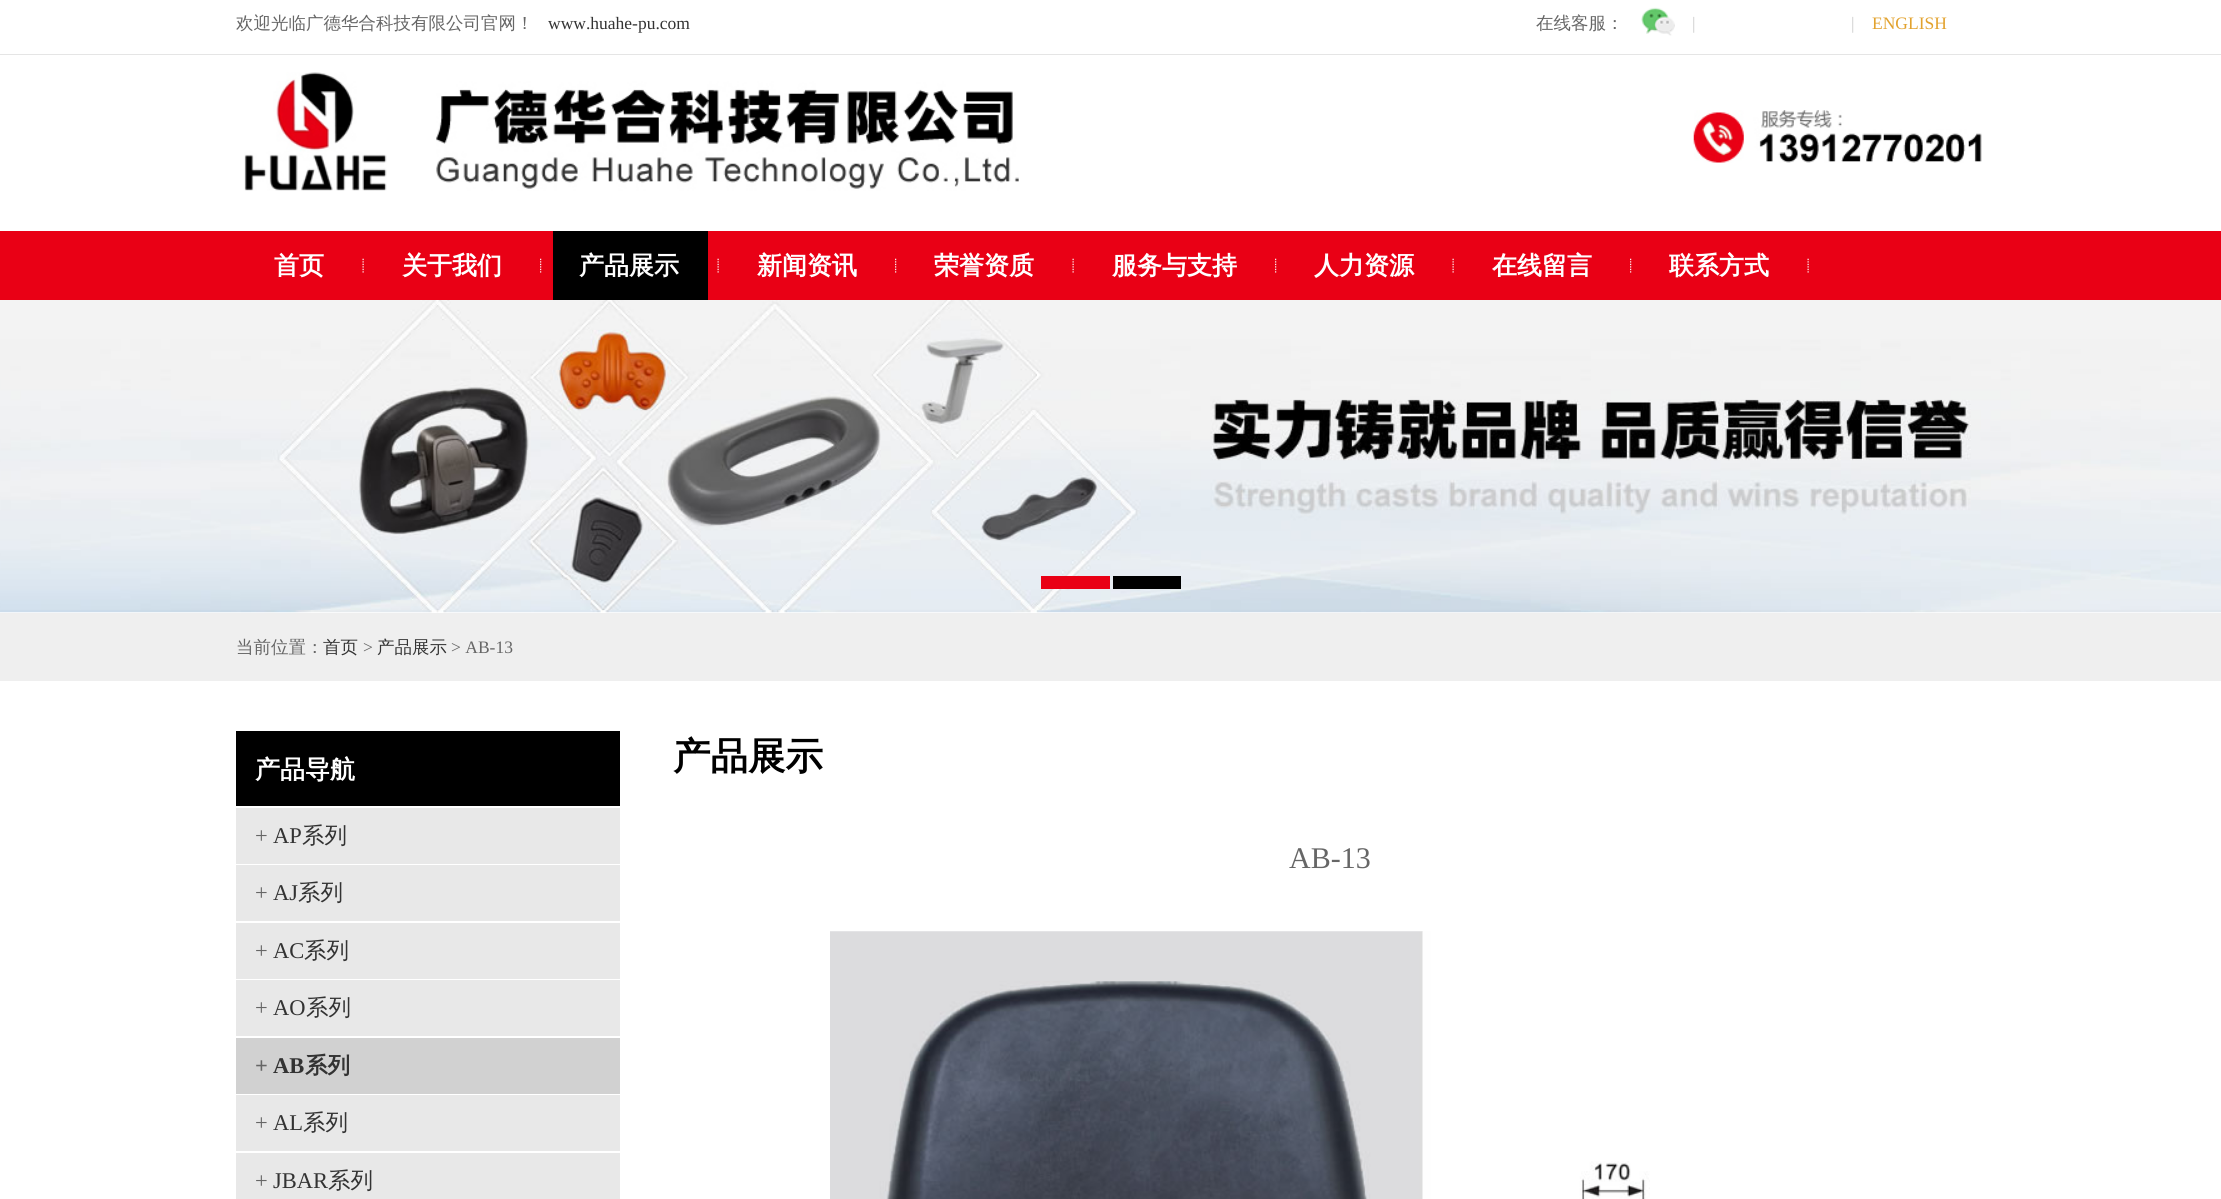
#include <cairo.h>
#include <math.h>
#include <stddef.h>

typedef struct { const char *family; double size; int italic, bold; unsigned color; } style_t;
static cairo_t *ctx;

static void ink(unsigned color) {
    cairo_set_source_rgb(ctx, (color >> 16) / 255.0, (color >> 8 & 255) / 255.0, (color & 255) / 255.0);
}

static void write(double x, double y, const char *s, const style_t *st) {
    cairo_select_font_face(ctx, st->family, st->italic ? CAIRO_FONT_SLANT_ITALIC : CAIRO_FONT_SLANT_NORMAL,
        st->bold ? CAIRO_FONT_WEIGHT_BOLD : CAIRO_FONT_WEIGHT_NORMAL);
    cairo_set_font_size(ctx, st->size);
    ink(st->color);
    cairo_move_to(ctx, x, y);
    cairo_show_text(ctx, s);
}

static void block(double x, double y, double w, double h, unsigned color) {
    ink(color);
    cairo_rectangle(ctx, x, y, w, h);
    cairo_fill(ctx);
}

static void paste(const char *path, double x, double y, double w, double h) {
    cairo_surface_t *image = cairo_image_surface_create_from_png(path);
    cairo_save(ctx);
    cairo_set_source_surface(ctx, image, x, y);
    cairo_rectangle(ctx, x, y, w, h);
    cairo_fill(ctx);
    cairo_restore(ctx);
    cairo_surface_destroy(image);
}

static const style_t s1 = {"WenQuanYi Zen Hei Medium", 17.5, 0, 0, 0x666666};
static const style_t s2 = {"Liberation Serif", 17.5, 0, 0, 0x333333};
static const style_t s3 = {"Liberation Serif", 17.5, 0, 0, 0xcccccc};
static const style_t s4 = {"Liberation Serif", 17.5, 0, 0, 0xe2a22e};
static const style_t s5 = {"WenQuanYi Zen Hei", 25, 0, 1, 0xffffff};
static const style_t s6 = {"WenQuanYi Zen Hei Medium", 17.5, 0, 0, 0x333333};
static const style_t s7 = {"Liberation Serif", 17.5, 0, 0, 0x666666};
static const style_t s8 = {"Liberation Serif", 22.5, 0, 0, 0x666666};
static const style_t s9 = {"Liberation Serif", 22.5, 0, 0, 0x333333};
static const style_t s10 = {"WenQuanYi Zen Hei Medium", 22.5, 0, 0, 0x333333};
static const style_t s11 = {"Liberation Serif", 22.5, 0, 1, 0x666666};
static const style_t s12 = {"Liberation Serif", 22.5, 0, 1, 0x333333};
static const style_t s13 = {"WenQuanYi Zen Hei", 22.5, 0, 1, 0x333333};
static const style_t s14 = {"WenQuanYi Zen Hei", 37.5, 0, 1, 0x000000};
static const style_t s15 = {"Liberation Serif", 30, 0, 0, 0x666666};

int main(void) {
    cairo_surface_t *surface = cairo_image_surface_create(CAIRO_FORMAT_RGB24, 2221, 1199);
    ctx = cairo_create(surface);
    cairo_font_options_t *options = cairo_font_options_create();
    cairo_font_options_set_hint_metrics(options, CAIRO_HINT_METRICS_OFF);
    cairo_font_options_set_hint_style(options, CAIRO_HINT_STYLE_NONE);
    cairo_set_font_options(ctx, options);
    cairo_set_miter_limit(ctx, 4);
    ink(0xffffff);
    cairo_paint(ctx);
    block(0, 54, 2221, 1, 0xe5e5e5);
    write(236, 29, "欢迎光临广德华合科技有限公司官网！", &s1);
    write(548, 29, "www.huahe-pu.com", &s2);
    write(1536, 29, "在线客服：", &s1);
    paste("pic1.png", 1641, 7, 34, 29);
    write(1692, 29, "|", &s3);
    write(1851, 29, "|", &s3);
    write(1872, 29, "ENGLISH", &s4);
    paste("pic2.png", 244, 72, 775, 119);
    paste("pic3.png", 1693, 110, 289, 53);
    block(0, 231, 2221, 69, 0xe90015);
    paste("pic4.png", 362, 258, 2, 15);
    write(274, 274, "首页", &s5);
    paste("pic5.png", 540, 258, 2, 15);
    write(402, 274, "关于我们", &s5);
    paste("pic4.png", 717, 258, 2, 15);
    block(553, 231, 155, 69, 0x000000);
    write(579, 274, "产品展示", &s5);
    paste("pic5.png", 895, 258, 2, 15);
    write(757, 274, "新闻资讯", &s5);
    paste("pic4.png", 1072, 258, 2, 15);
    write(934, 274, "荣誉资质", &s5);
    paste("pic5.png", 1275, 258, 2, 15);
    write(1112, 274, "服务与支持", &s5);
    paste("pic4.png", 1452, 258, 2, 15);
    write(1314, 274, "人力资源", &s5);
    paste("pic5.png", 1630, 258, 2, 15);
    write(1492, 274, "在线留言", &s5);
    paste("pic4.png", 1807, 258, 2, 15);
    write(1669, 274, "联系方式", &s5);
    paste("pic6.png", 0, 300, 2221, 313);
    block(1041, 576, 69, 13, 0xe90015);
    block(1113, 576, 68, 13, 0x000000);
    block(0, 613, 2221, 68, 0xefefef);
    write(236, 653, "当前位置：", &s1);
    write(323, 653, "首页", &s6);
    write(363, 653, ">", &s7);
    write(377, 653, "产品展示", &s6);
    write(451, 653, "> AB-13", &s7);
    block(236, 731, 384, 75, 0x000000);
    write(255, 778, "产品导航", &s5);
    block(236, 808, 384, 56, 0xe8e8e8);
    write(255, 843, "+", &s8);
    write(273, 843, "AP", &s9);
    write(302, 843, "系列", &s10);
    block(236, 865, 384, 56, 0xe8e8e8);
    write(255, 900, "+", &s8);
    write(273, 900, "AJ", &s9);
    write(298, 900, "系列", &s10);
    block(236, 923, 384, 56, 0xe8e8e8);
    write(255, 958, "+", &s8);
    write(273, 958, "AC", &s9);
    write(304, 958, "系列", &s10);
    block(236, 980, 384, 56, 0xe8e8e8);
    write(255, 1015, "+", &s8);
    write(273, 1015, "AO", &s9);
    write(306, 1015, "系列", &s10);
    block(236, 1038, 384, 56, 0xd1d1d1);
    write(255, 1073, "+", &s11);
    write(273, 1073, "AB", &s12);
    write(305, 1073, "系列", &s13);
    block(236, 1095, 384, 56, 0xe8e8e8);
    write(255, 1130, "+", &s8);
    write(273, 1130, "AL", &s9);
    write(303, 1130, "系列", &s10);
    block(236, 1153, 384, 46, 0xe8e8e8);
    write(255, 1188, "+", &s8);
    write(273, 1188, "JBAR", &s9);
    write(328, 1188, "系列", &s10);
    write(673, 769, "产品展示", &s14);
    write(1289, 868, "AB-13", &s15);
    paste("pic7.png", 830, 931, 820, 268);
    cairo_surface_write_to_png(surface, "screenshot.png");
    cairo_font_options_destroy(options);
    cairo_destroy(ctx);
    cairo_surface_destroy(surface);
    return 0;
}
